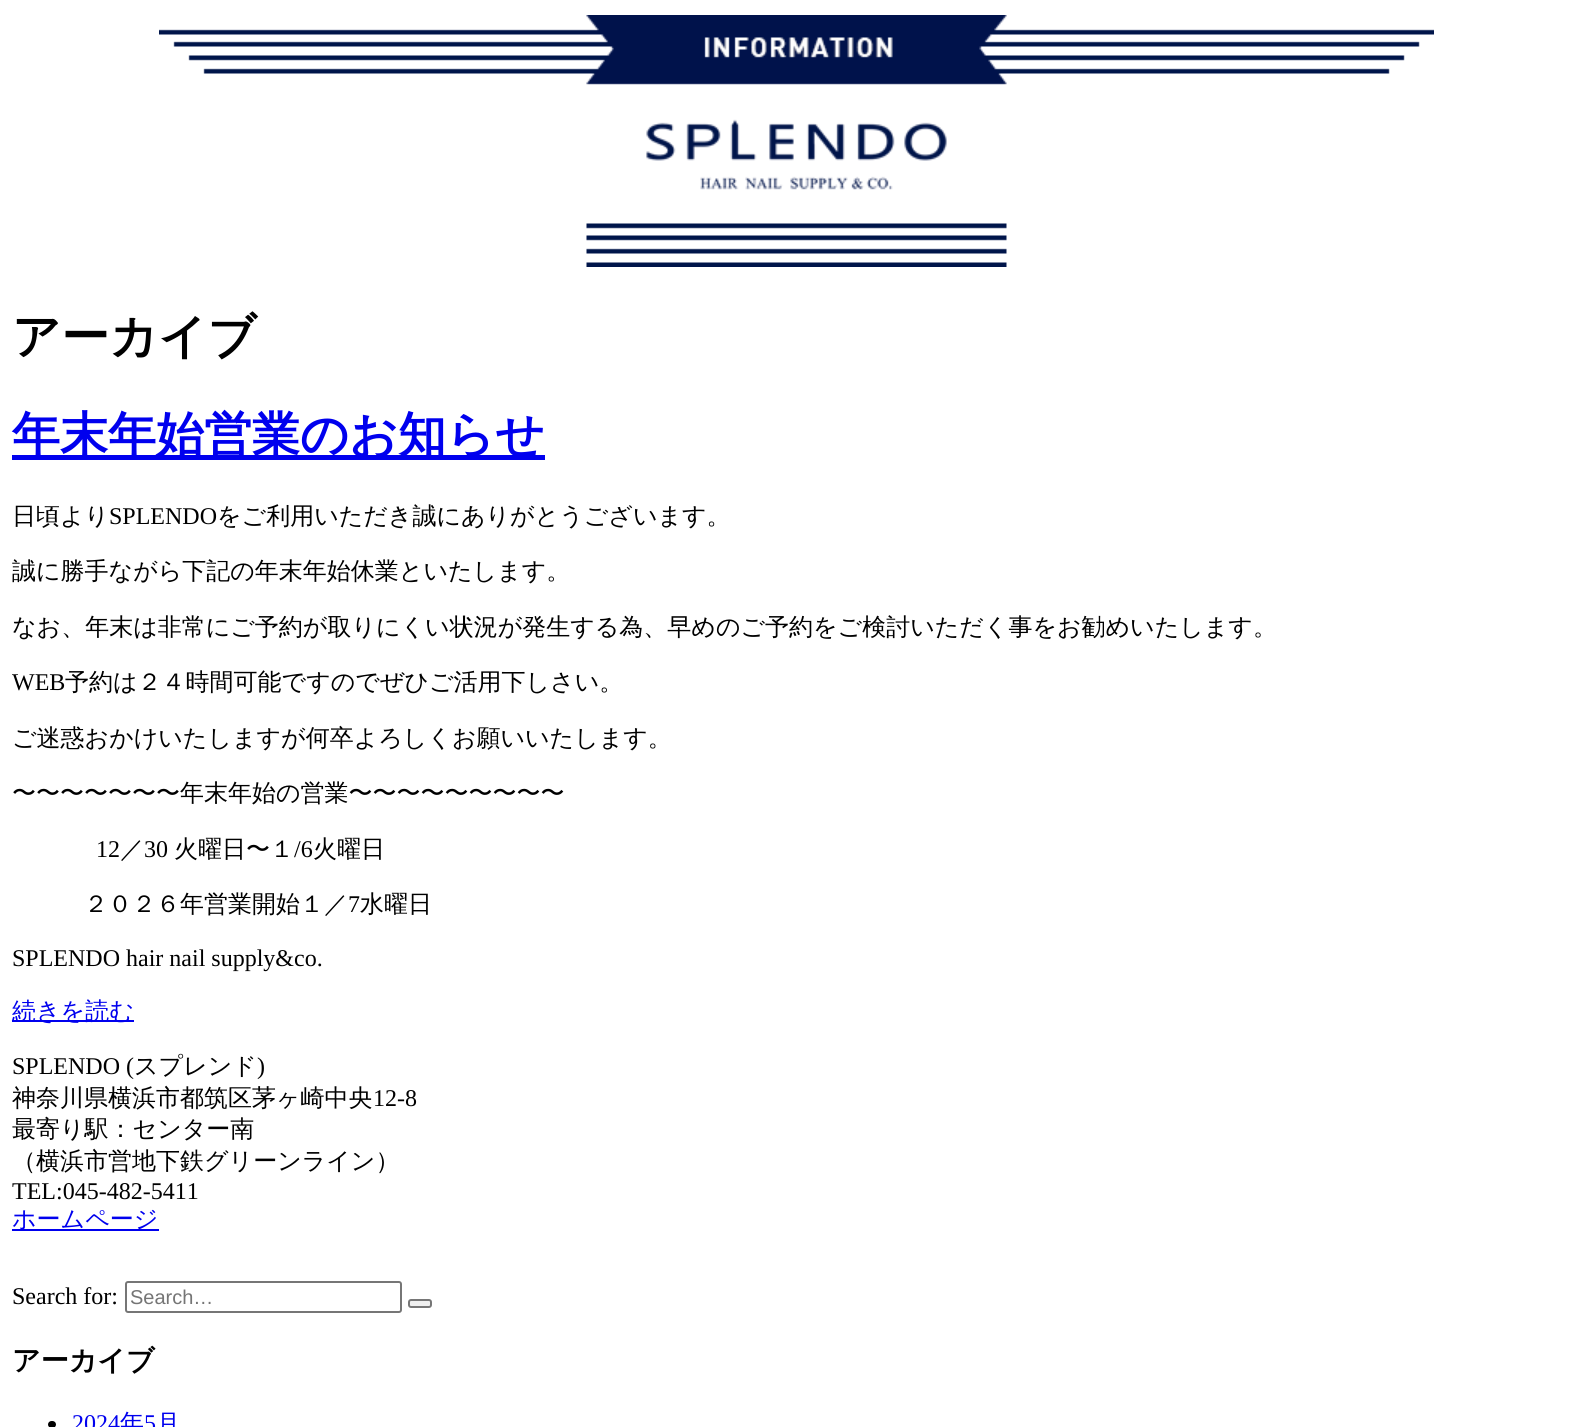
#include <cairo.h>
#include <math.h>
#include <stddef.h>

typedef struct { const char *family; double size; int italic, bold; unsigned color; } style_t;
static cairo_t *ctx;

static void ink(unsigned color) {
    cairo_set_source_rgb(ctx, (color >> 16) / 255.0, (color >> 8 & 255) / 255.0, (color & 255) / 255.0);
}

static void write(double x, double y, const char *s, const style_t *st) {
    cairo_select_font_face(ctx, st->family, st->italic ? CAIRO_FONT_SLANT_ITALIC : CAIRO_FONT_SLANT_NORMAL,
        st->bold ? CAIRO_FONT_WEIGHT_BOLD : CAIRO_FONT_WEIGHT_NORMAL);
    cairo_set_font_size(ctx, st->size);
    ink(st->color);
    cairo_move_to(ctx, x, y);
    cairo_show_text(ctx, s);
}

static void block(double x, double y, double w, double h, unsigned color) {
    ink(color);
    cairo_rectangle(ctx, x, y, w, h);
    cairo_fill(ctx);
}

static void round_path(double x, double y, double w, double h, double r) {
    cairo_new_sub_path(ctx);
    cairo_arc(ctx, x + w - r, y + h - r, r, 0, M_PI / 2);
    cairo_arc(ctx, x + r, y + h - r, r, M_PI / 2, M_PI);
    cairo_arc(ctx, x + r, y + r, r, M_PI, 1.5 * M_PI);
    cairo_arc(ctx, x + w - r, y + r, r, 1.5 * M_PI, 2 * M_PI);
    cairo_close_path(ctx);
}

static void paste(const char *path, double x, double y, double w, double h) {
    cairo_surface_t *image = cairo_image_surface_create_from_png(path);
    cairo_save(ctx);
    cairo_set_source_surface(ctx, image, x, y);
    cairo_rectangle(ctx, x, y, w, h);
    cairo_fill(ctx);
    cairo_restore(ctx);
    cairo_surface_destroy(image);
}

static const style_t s1 = {"WenQuanYi Zen Hei", 48, 0, 1, 0x000000};
static const style_t s2 = {"WenQuanYi Zen Hei", 48, 0, 1, 0x0000ee};
static const style_t s3 = {"WenQuanYi Zen Hei Medium", 24, 0, 0, 0x000000};
static const style_t s4 = {"Liberation Serif", 24, 0, 0, 0x000000};
static const style_t s5 = {"WenQuanYi Zen Hei Medium", 24, 0, 0, 0x0000ee};
static const style_t s6 = {"Liberation Sans", 20, 0, 0, 0x757575};
static const style_t s7 = {"WenQuanYi Zen Hei", 28, 0, 1, 0x000000};
static const style_t s8 = {"Liberation Serif", 24, 0, 0, 0x0000ee};

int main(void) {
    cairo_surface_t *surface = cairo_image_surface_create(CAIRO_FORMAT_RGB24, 1593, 1427);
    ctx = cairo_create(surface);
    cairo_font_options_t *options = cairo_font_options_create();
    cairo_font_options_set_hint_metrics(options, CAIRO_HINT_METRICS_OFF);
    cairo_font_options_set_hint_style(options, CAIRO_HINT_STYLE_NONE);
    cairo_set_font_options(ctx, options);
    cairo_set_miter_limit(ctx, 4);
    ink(0xffffff);
    cairo_paint(ctx);
    paste("pic1.png", 159, 15, 1275, 252);
    write(12, 353, "アーカイブ", &s1);
    block(12, 455, 533, 5, 0x0000ee);
    write(12, 451, "年末年始営業のお知らせ", &s2);
    write(12, 524, "日頃より", &s3);
    write(109, 524, "SPLENDO", &s4);
    write(217, 524, "をご利用いただき誠にありがとうございます。", &s3);
    write(12, 579, "誠に勝手ながら下記の年末年始休業といたします。", &s3);
    write(12, 635, "なお、年末は非常にご予約が取りにくい状況が発生する為、早めのご予約をご検討いただく事をお勧めいたします。", &s3);
    write(12, 690, "WEB", &s4);
    write(65, 690, "予約は２４時間可能ですのでぜひご活用下しさい。", &s3);
    write(12, 746, "ご迷惑おかけいたしますが何卒よろしくお願いいたします。", &s3);
    write(12, 801, "〜〜〜〜〜〜〜年末年始の営業〜〜〜〜〜〜〜〜〜", &s3);
    write(96, 857, "12", &s4);
    write(120, 857, "／", &s3);
    write(144, 857, "30", &s4);
    write(174, 857, "火曜日〜１", &s3);
    write(294, 857, "/6", &s4);
    write(313, 857, "火曜日", &s3);
    write(84, 912, "２０２６年営業開始１／", &s3);
    write(348, 912, "7", &s4);
    write(360, 912, "水曜日", &s3);
    write(12, 966, "SPLENDO hair nail supply&co.", &s4);
    block(12, 1020, 122, 2, 0x0000ee);
    write(12, 1019, "続きを読む", &s5);
    write(12, 1074, "SPLENDO (", &s4);
    write(134, 1074, "スプレンド", &s3);
    write(257, 1074, ")", &s4);
    write(12, 1106, "神奈川県横浜市都筑区茅ヶ崎中央", &s3);
    write(373, 1106, "12-8", &s4);
    write(12, 1137, "最寄り駅：センター南", &s3);
    write(12, 1169, "（横浜市営地下鉄グリーンライン）", &s3);
    write(12, 1199, "TEL:045-482-5411", &s4);
    block(12, 1229, 147, 2, 0x0000ee);
    write(12, 1227, "ホームページ", &s5);
    write(12, 1304, "Search for:", &s4);
    round_path(126, 1282, 275, 30, 2);
    ink(0x767676);
    cairo_stroke(ctx);
    write(130, 1304, "Search…", &s6);
    ink(0xefefef);
    round_path(409, 1300, 22, 7, 2);
    cairo_fill_preserve(ctx);
    ink(0x767676);
    cairo_stroke(ctx);
    write(12, 1370, "アーカイブ", &s7);
    round_path(48, 1421, 8, 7, 3.5);
    cairo_fill(ctx);
    write(72, 1431, "2024", &s8);
    write(120, 1431, "年", &s5);
    write(144, 1431, "5", &s8);
    write(156, 1431, "月", &s5);
    cairo_surface_write_to_png(surface, "screenshot.png");
    cairo_font_options_destroy(options);
    cairo_destroy(ctx);
    cairo_surface_destroy(surface);
    return 0;
}
